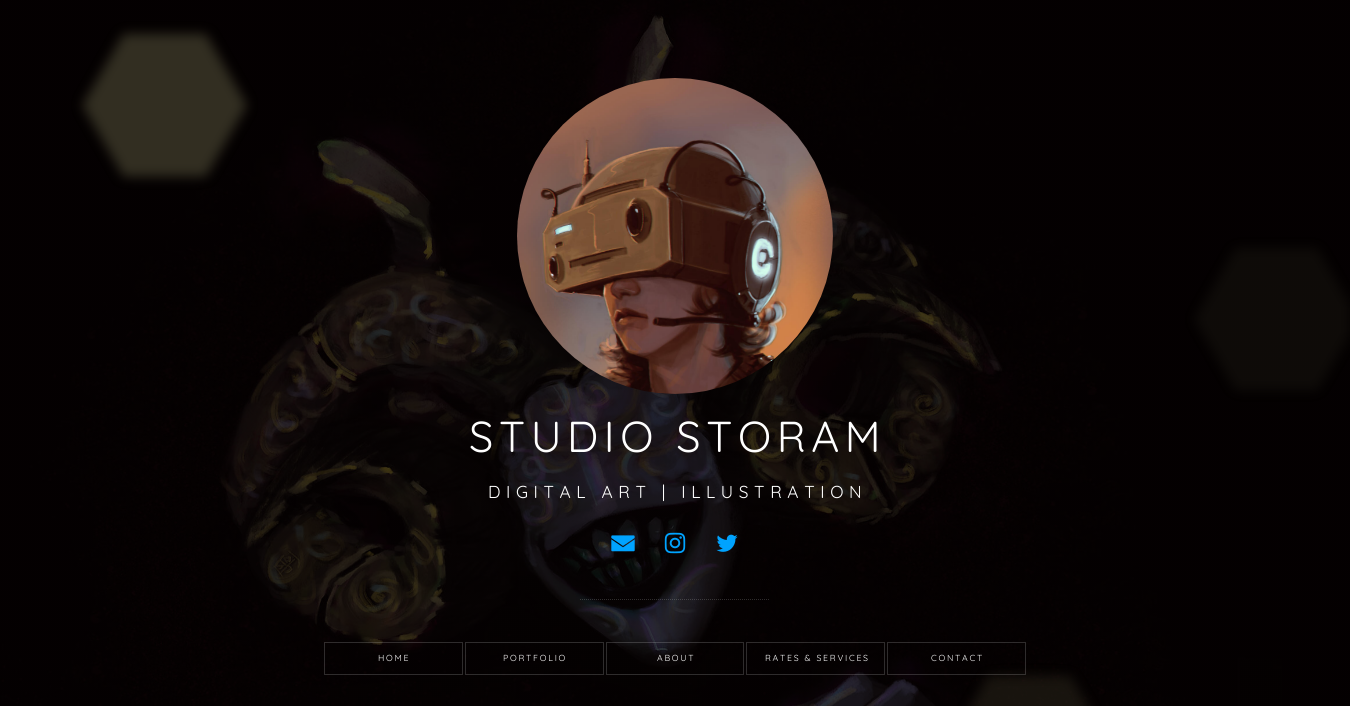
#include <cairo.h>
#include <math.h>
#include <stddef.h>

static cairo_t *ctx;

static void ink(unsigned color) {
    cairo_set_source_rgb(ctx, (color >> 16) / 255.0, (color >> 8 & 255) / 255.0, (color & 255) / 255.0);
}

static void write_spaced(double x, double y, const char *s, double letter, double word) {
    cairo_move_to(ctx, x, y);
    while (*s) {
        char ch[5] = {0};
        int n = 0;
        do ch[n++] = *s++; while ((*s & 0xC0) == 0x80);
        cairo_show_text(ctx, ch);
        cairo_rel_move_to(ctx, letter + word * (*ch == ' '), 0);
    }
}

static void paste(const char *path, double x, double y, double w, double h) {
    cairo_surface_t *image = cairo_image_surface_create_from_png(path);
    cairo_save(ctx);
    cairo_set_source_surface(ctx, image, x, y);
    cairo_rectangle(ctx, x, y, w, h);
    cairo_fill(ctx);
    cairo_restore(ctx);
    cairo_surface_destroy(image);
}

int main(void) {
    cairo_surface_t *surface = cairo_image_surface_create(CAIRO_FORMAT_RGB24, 1350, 706);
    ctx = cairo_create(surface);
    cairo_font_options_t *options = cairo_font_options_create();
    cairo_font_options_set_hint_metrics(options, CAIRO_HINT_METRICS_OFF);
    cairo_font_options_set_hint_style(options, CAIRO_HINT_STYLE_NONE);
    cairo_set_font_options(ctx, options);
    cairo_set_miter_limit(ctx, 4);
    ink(0xffffff);
    cairo_paint(ctx);
    paste("pic1.png", 0, 0, 1350, 706);
    paste("pic2.png", 517, 78, 316, 316);
    cairo_select_font_face(ctx, "Quicksand", CAIRO_FONT_SLANT_NORMAL, CAIRO_FONT_WEIGHT_NORMAL);
    cairo_set_font_size(ctx, 43.25);
    ink(0xffffff);
    write_spaced(469, 452, "STUDIO STORAM", 5.6, 0);
    cairo_set_font_size(ctx, 17.3);
    write_spaced(488, 498, "DIGITAL ART | ILLUSTRATION", 5.6, 0);
    paste("pic3.png", 611, 535, 24, 17);
    paste("pic4.png", 664, 532, 22, 22);
    paste("pic5.png", 716, 534, 22, 18);
    cairo_new_path(ctx);
    cairo_move_to(ctx, 580, 599.5);
    cairo_line_to(ctx, 770, 599.5);
    cairo_set_source_rgba(ctx, 1, 1, 1, 0.17);
    cairo_set_line_width(ctx, 1);
    cairo_set_dash(ctx, (double[]){1, 1}, 2, 0);
    cairo_stroke(ctx);
    cairo_rectangle(ctx, 324.5, 642.5, 138, 32);
    cairo_set_dash(ctx, NULL, 0, 0);
    cairo_stroke(ctx);
    cairo_set_font_size(ctx, 8.75);
    ink(0xffffff);
    write_spaced(378, 661, "HOME", 1.75, 0);
    cairo_rectangle(ctx, 465.5, 642.5, 138, 32);
    cairo_set_source_rgba(ctx, 1, 1, 1, 0.17);
    cairo_stroke(ctx);
    ink(0xffffff);
    write_spaced(503, 661, "PORTFOLIO", 1.75, 0);
    cairo_rectangle(ctx, 606.5, 642.5, 137, 32);
    cairo_set_source_rgba(ctx, 1, 1, 1, 0.17);
    cairo_stroke(ctx);
    ink(0xffffff);
    write_spaced(657, 661, "ABOUT", 1.75, 0);
    cairo_rectangle(ctx, 746.5, 642.5, 138, 32);
    cairo_set_source_rgba(ctx, 1, 1, 1, 0.17);
    cairo_stroke(ctx);
    ink(0xffffff);
    write_spaced(765, 661, "RATES & SERVICES", 1.75, 0);
    cairo_rectangle(ctx, 887.5, 642.5, 138, 32);
    cairo_set_source_rgba(ctx, 1, 1, 1, 0.17);
    cairo_stroke(ctx);
    ink(0xffffff);
    write_spaced(931, 661, "CONTACT", 1.75, 0);
    cairo_surface_write_to_png(surface, "screenshot.png");
    cairo_font_options_destroy(options);
    cairo_destroy(ctx);
    cairo_surface_destroy(surface);
    return 0;
}
